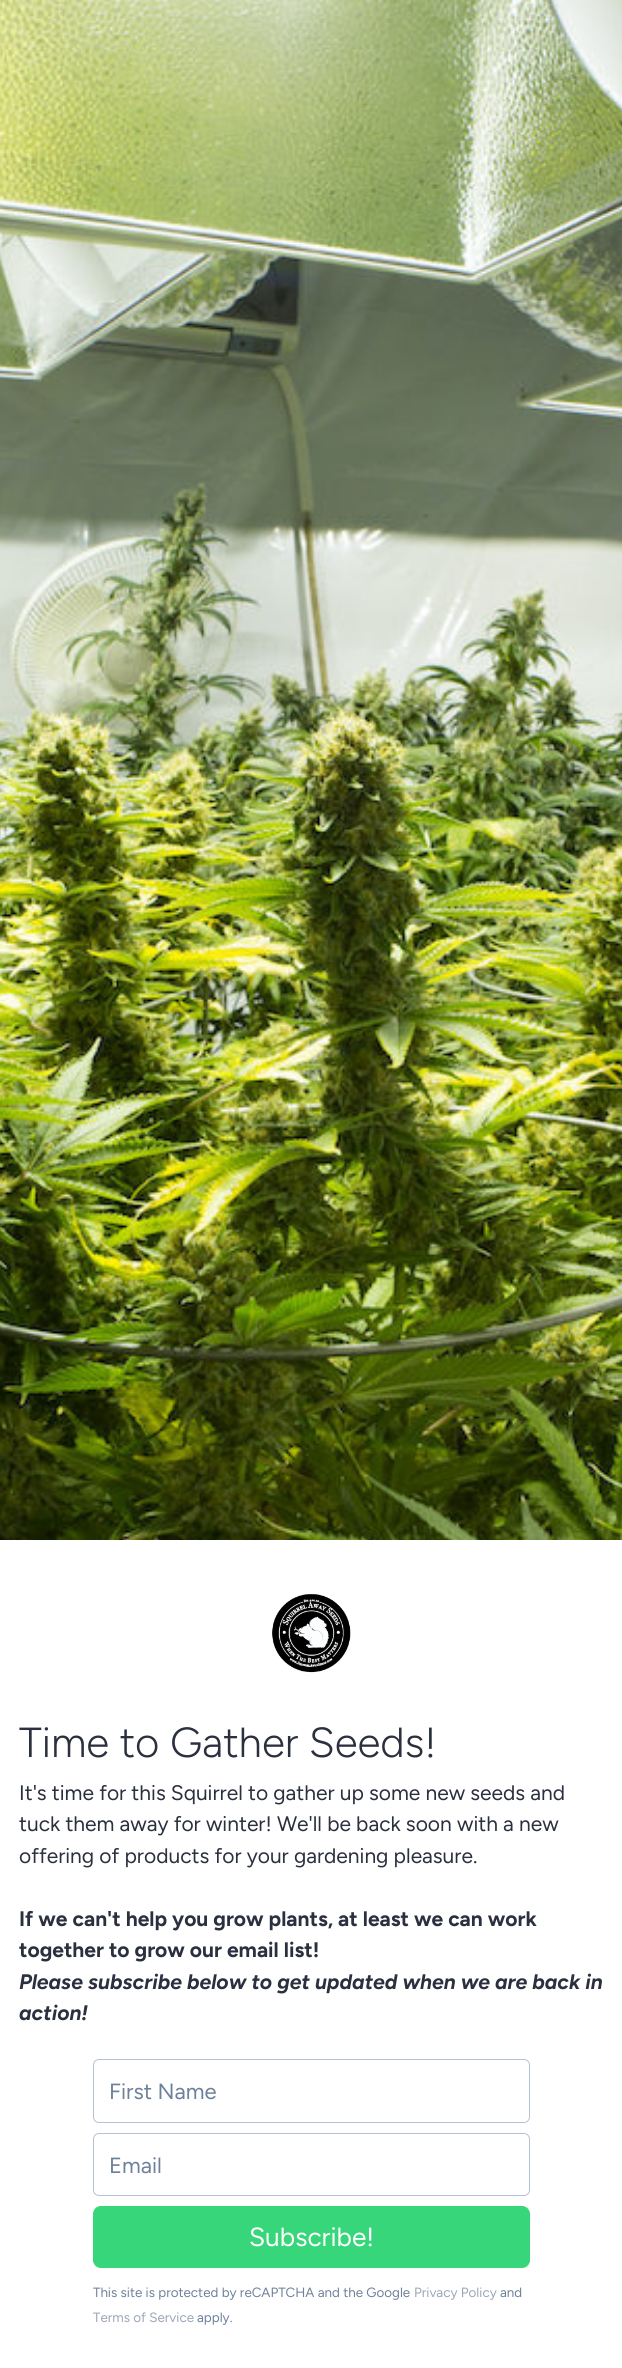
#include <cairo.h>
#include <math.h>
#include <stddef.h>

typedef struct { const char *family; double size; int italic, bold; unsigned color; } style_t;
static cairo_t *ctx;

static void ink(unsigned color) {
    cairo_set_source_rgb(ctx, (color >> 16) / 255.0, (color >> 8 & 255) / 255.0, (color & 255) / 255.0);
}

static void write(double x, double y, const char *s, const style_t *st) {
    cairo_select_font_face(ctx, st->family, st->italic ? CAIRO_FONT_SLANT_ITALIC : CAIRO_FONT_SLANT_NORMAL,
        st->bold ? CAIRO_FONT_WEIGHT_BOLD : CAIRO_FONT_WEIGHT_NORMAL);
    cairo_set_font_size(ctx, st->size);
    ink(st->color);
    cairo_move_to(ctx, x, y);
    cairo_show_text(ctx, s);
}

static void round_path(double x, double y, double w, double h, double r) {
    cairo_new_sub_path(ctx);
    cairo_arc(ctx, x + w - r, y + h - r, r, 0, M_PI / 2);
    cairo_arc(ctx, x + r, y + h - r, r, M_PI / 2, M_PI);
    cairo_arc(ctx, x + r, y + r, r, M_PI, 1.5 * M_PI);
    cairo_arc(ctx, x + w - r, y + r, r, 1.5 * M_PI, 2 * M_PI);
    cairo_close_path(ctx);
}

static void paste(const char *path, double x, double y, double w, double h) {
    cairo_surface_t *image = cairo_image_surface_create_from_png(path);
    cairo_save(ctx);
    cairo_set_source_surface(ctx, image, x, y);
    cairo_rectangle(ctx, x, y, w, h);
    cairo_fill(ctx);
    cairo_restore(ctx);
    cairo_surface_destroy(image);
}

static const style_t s1 = {"Figtree Light", 42, 0, 0, 0x2b303f};
static const style_t s2 = {"Figtree", 21, 0, 0, 0x2b303f};
static const style_t s3 = {"Figtree", 21, 0, 1, 0x2b303f};
static const style_t s4 = {"Figtree", 21, 1, 1, 0x2b303f};
static const style_t s5 = {"Figtree", 22, 0, 0, 0x6e819a};
static const style_t s6 = {"Figtree", 26.25, 0, 0, 0xffffff};
static const style_t s7 = {"Figtree", 13.4, 0, 0, 0x6e819a};
static const style_t s8 = {"Figtree", 13.4, 0, 0, 0x9aa7b8};

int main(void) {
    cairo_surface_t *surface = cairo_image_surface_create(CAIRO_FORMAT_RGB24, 622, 2368);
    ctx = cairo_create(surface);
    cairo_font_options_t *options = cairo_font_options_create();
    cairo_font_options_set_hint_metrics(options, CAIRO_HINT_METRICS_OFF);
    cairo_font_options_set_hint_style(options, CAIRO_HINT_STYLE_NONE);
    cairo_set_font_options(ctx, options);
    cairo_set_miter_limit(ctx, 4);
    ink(0xffffff);
    cairo_paint(ctx);
    paste("pic1.png", 0, 0, 622, 1540);
    paste("pic2.png", 272, 1594, 79, 79);
    write(19, 1757, "Time to Gather Seeds!", &s1);
    write(19, 1800, "It's time for this Squirrel to gather up some new seeds and", &s2);
    write(19, 1831, "tuck them away for winter! We'll be back soon with a new", &s2);
    write(19, 1863, "offering of products for your gardening pleasure.", &s2);
    write(19, 1926, "If we can't help you grow plants, at least we can work", &s3);
    write(19, 1957, "together to grow our email list!", &s3);
    write(19, 1989, "Please subscribe below to get updated when we are back in", &s4);
    write(19, 2020, "action!", &s4);
    round_path(93.5, 2059.5, 436, 63, 5.5);
    ink(0xb4c2d3);
    cairo_set_line_width(ctx, 1);
    cairo_stroke(ctx);
    write(109, 2099, "First Name", &s5);
    round_path(93.5, 2133.5, 436, 62, 5.5);
    ink(0xb4c2d3);
    cairo_stroke(ctx);
    write(109, 2173, "Email", &s5);
    ink(0x37d67a);
    round_path(93.5, 2206.5, 436, 61, 7.5);
    cairo_fill_preserve(ctx);
    cairo_stroke(ctx);
    write(249, 2246, "Subscribe!", &s6);
    write(93, 2297, "This site is protected by reCAPTCHA and the Google", &s7);
    write(414, 2297, "Privacy Policy", &s8);
    write(500, 2297, "and", &s7);
    write(93, 2322, "Terms of Service", &s8);
    write(197, 2322, "apply.", &s7);
    cairo_surface_write_to_png(surface, "screenshot.png");
    cairo_font_options_destroy(options);
    cairo_destroy(ctx);
    cairo_surface_destroy(surface);
    return 0;
}
